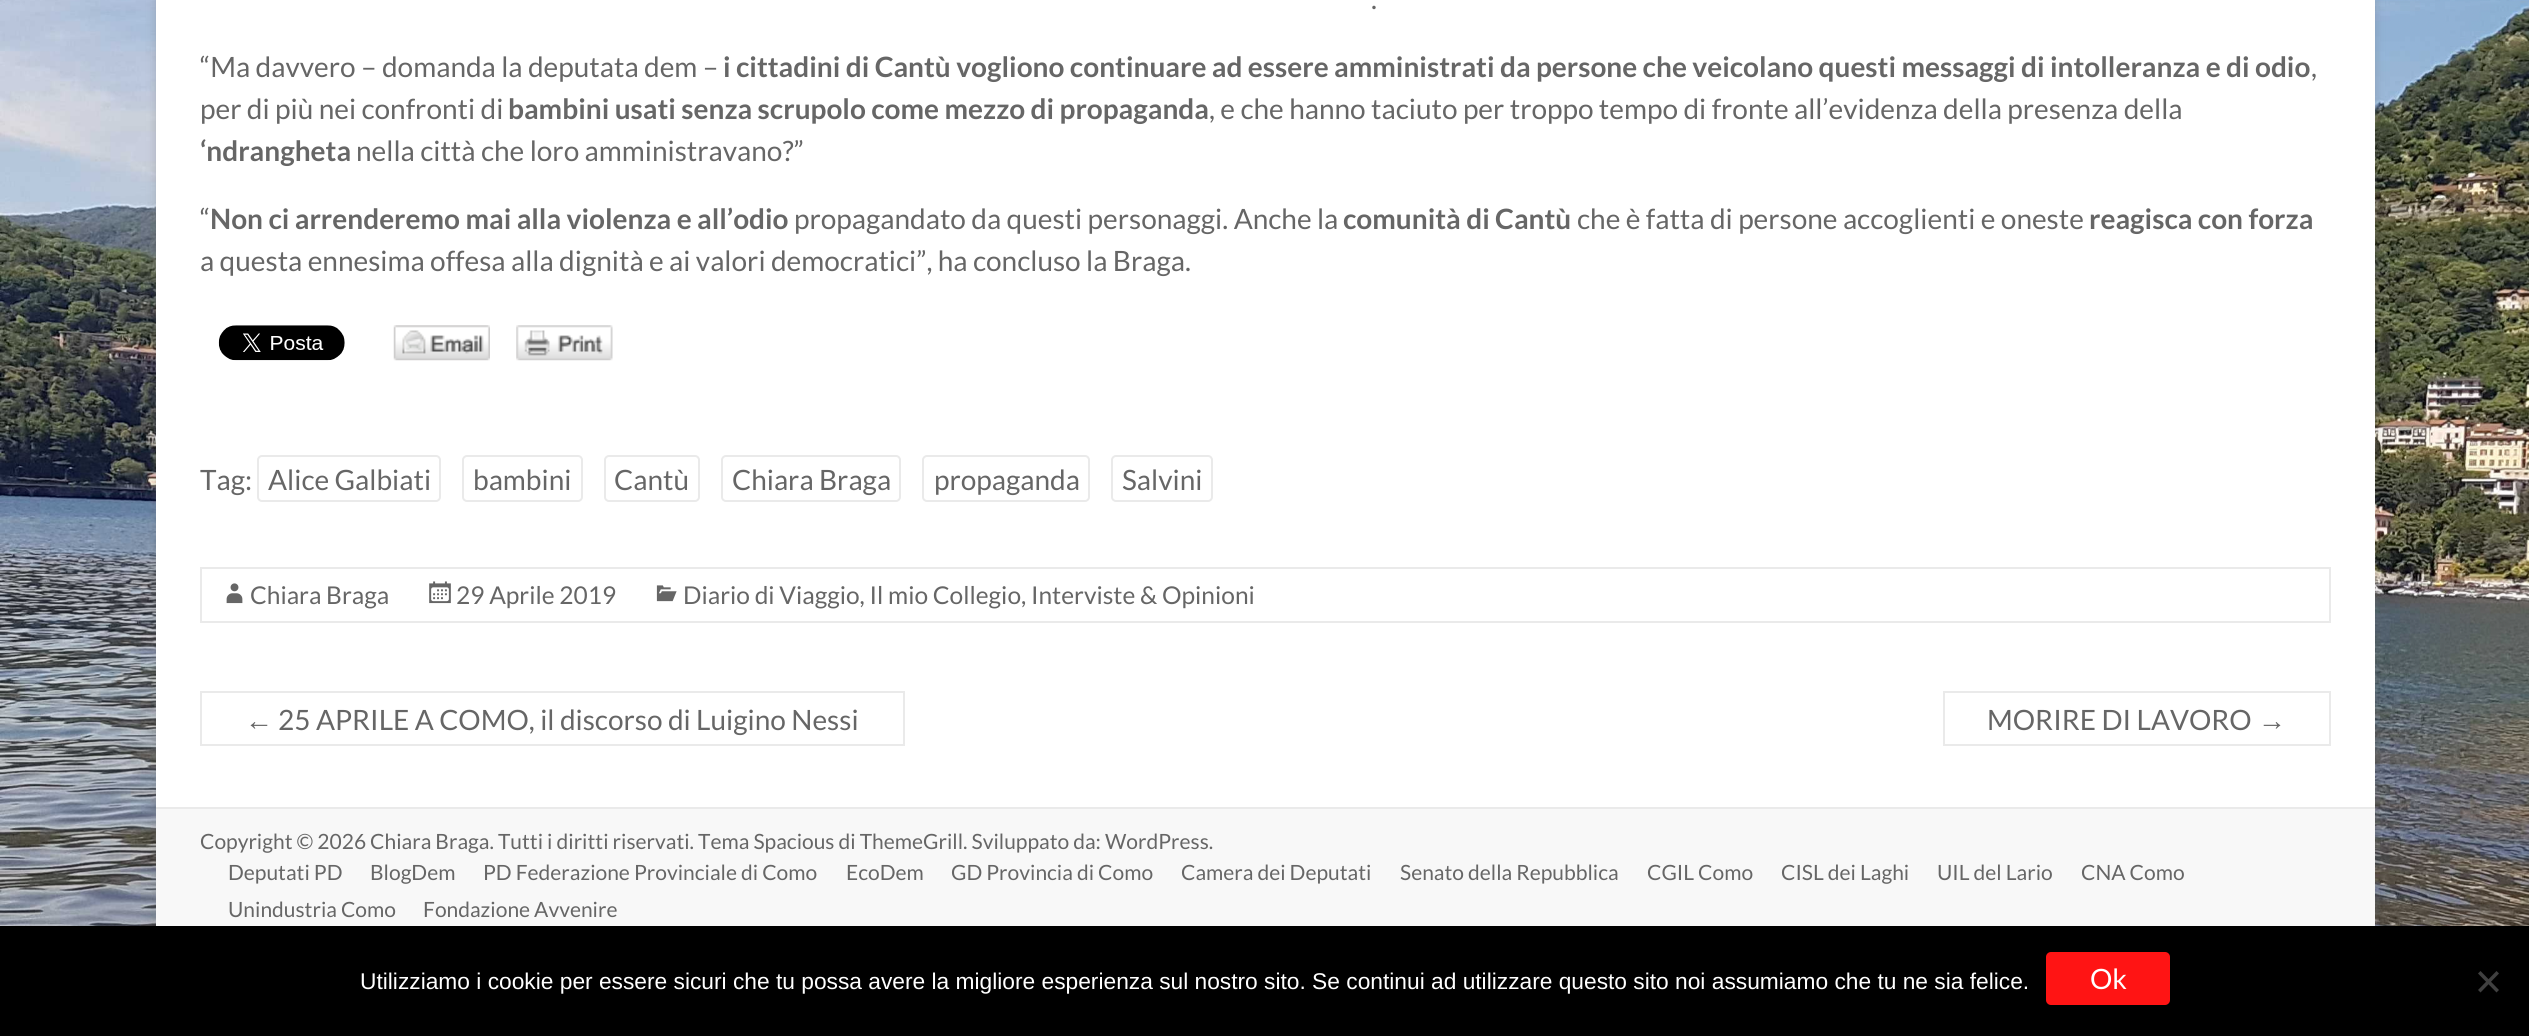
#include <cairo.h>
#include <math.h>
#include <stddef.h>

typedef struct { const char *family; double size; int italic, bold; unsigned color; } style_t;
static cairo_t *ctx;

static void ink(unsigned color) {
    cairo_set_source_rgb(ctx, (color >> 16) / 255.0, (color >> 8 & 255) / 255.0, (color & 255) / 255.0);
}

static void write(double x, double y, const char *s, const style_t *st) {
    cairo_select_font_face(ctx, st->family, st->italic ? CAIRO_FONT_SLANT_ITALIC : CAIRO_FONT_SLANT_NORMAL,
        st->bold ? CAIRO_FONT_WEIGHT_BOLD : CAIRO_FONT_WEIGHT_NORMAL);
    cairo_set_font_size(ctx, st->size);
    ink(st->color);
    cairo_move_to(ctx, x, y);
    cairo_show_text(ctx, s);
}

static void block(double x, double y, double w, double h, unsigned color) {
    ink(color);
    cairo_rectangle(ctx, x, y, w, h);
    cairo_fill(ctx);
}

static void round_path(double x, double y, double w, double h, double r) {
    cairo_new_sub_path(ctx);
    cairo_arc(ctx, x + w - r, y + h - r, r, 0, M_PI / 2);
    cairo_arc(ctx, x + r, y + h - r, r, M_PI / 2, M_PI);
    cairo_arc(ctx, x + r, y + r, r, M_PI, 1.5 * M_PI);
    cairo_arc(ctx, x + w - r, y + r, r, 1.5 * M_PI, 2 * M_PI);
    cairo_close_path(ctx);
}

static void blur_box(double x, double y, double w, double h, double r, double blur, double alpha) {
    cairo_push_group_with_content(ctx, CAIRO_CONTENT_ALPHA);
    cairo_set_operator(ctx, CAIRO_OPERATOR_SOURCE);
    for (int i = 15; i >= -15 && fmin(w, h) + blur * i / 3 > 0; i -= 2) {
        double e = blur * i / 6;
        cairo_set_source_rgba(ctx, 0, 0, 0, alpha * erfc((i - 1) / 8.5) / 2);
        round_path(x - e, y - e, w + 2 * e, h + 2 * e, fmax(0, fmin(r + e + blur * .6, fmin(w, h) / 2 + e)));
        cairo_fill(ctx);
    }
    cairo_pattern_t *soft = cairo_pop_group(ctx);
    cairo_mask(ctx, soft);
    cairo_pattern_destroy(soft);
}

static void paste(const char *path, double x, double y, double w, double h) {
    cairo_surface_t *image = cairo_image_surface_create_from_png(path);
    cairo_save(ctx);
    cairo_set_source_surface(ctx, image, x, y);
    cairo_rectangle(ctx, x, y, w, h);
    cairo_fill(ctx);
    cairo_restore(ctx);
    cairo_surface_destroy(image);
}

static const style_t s1 = {"Lato", 28, 0, 0, 0x666666};
static const style_t s2 = {"Lato", 28, 0, 1, 0x666666};
static const style_t s3 = {"Lato", 24.5, 0, 0, 0x666666};
static const style_t s4 = {"Liberation Sans", 28, 0, 0, 0x666666};
static const style_t s5 = {"Lato", 21, 0, 0, 0x666666};
static const style_t s6 = {"Liberation Sans", 22.75, 0, 0, 0xffffff};
static const style_t s7 = {"Lato", 28, 0, 0, 0xffffff};

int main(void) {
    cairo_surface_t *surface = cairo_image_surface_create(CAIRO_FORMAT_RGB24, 2529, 1036);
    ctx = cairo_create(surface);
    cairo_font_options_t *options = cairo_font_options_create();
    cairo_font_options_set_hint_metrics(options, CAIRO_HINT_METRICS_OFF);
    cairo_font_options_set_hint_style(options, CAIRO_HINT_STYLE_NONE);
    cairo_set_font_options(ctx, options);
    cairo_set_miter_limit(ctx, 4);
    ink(0xffffff);
    cairo_paint(ctx);
    paste("pic1.png", 0, 0, 2529, 926);
    ink(0x646464);
    blur_box(156, -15, 2219, 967, 0, 5, 0.3);
    block(156, 0, 2219, 807, 0xffffff);
    write(1371, 9, ".", &s1);
    write(200, 77, "“Ma davvero – domanda la deputata dem –", &s1);
    write(723, 77, "i cittadini di Cantù vogliono continuare ad essere amministrati da persone che veicolano questi messaggi di intolleranza e di odio", &s2);
    write(2311, 77, ",", &s1);
    write(200, 119, "per di più nei confronti di", &s1);
    write(508, 119, "bambini usati senza scrupolo come mezzo di propaganda", &s2);
    write(1209, 119, ", e che hanno taciuto per troppo tempo di fronte all’evidenza della presenza della", &s1);
    write(200, 161, "‘ndrangheta", &s2);
    write(356, 161, "nella città che loro amministravano?”", &s1);
    write(200, 229, "“", &s1);
    write(210, 229, "Non ci arrenderemo mai alla violenza e all’odio", &s2);
    write(794, 229, "propagandato da questi personaggi. Anche la", &s1);
    write(1343, 229, "comunità di Cantù", &s2);
    write(1577, 229, "che è fatta di persone accoglienti e oneste", &s1);
    write(2089, 229, "reagisca con forza", &s2);
    write(200, 271, "a questa ennesima offesa alla dignità e ai valori democratici”, ha concluso la Braga.", &s1);
    paste("pic2.png", 218, 325, 127, 36);
    paste("pic3.png", 393, 325, 97, 36);
    paste("pic4.png", 516, 325, 97, 36);
    write(200, 490, "Tag:", &s1);
    round_path(258, 456, 182, 45, 4);
    ink(0xeaeaea);
    cairo_stroke(ctx);
    write(268, 490, "Alice Galbiati", &s1);
    round_path(463, 456, 119, 45, 4);
    ink(0xeaeaea);
    cairo_stroke(ctx);
    write(473, 490, "bambini", &s1);
    round_path(605, 456, 94, 45, 4);
    ink(0xeaeaea);
    cairo_stroke(ctx);
    write(614, 490, "Cantù", &s1);
    round_path(722, 456, 178, 45, 4);
    ink(0xeaeaea);
    cairo_stroke(ctx);
    write(732, 490, "Chiara Braga", &s1);
    round_path(923, 456, 166, 45, 4);
    ink(0xeaeaea);
    cairo_stroke(ctx);
    write(934, 490, "propaganda", &s1);
    round_path(1112, 456, 100, 45, 4);
    ink(0xeaeaea);
    cairo_stroke(ctx);
    write(1122, 490, "Salvini", &s1);
    cairo_rectangle(ctx, 201, 568, 2129, 54);
    ink(0xeaeaea);
    cairo_stroke(ctx);
    paste("pic5.png", 226, 583, 17, 21);
    write(250, 604, "Chiara Braga", &s3);
    paste("pic6.png", 429, 581, 22, 23);
    write(456, 604, "29 Aprile 2019", &s3);
    paste("pic7.png", 656, 585, 21, 17);
    write(683, 604, "Diario di Viaggio, Il mio Collegio, Interviste & Opinioni", &s3);
    write(245, 730, "←", &s4);
    block(200, 744, 73, 2, 0xeaeaea);
    block(200, 691, 705, 2, 0xeaeaea);
    block(200, 691, 2, 55, 0xeaeaea);
    block(903, 691, 2, 55, 0xeaeaea);
    block(273, 744, 632, 2, 0xeaeaea);
    write(278, 730, "25 APRILE A COMO, il discorso di Luigino Nessi", &s1);
    write(1987, 730, "MORIRE DI LAVORO", &s1);
    block(1943, 691, 388, 2, 0xeaeaea);
    block(1943, 744, 315, 2, 0xeaeaea);
    block(1943, 691, 2, 55, 0xeaeaea);
    write(2258, 730, "→", &s4);
    block(2329, 691, 2, 55, 0xeaeaea);
    block(2258, 744, 73, 2, 0xeaeaea);
    block(156, 809, 2219, 117, 0xf8f8f8);
    block(156, 807, 2219, 2, 0xeaeaea);
    write(200, 849, "Copyright © 2026 Chiara Braga. Tutti i diritti riservati. Tema Spacious di ThemeGrill. Sviluppato da: WordPress.", &s5);
    write(228, 880, "Deputati PD", &s5);
    write(370, 880, "BlogDem", &s5);
    write(483, 880, "PD Federazione Provinciale di Como", &s5);
    write(846, 880, "EcoDem", &s5);
    write(951, 880, "GD Provincia di Como", &s5);
    write(1181, 880, "Camera dei Deputati", &s5);
    write(1400, 880, "Senato della Repubblica", &s5);
    write(1647, 880, "CGIL Como", &s5);
    write(1781, 880, "CISL dei Laghi", &s5);
    write(1937, 880, "UIL del Lario", &s5);
    write(2081, 880, "CNA Como", &s5);
    write(228, 917, "Unindustria Como", &s5);
    write(423, 917, "Fondazione Avvenire", &s5);
    block(0, 926, 2529, 110, 0x000000);
    write(360, 989, "Utilizziamo i cookie per essere sicuri che tu possa avere la migliore esperienza sul nostro sito. Se continui ad utilizzare questo sito noi assumiamo che tu ne sia felice.", &s6);
    ink(0xff1414);
    round_path(2046, 952, 124, 53, 5);
    cairo_fill(ctx);
    write(2090, 989, "Ok", &s7);
    ink(0x404040);
    cairo_new_path(ctx);
    cairo_move_to(ctx, 2496.5, 971);
    cairo_line_to(ctx, 2499, 973.5);
    cairo_line_to(ctx, 2480.5, 992.5);
    cairo_line_to(ctx, 2478, 990);
    cairo_close_path(ctx);
    cairo_fill(ctx);
    cairo_new_path(ctx);
    cairo_move_to(ctx, 2478, 973.5);
    cairo_line_to(ctx, 2480.5, 971);
    cairo_line_to(ctx, 2499, 990);
    cairo_line_to(ctx, 2496.5, 992.5);
    cairo_close_path(ctx);
    cairo_fill(ctx);
    cairo_surface_write_to_png(surface, "screenshot.png");
    cairo_font_options_destroy(options);
    cairo_destroy(ctx);
    cairo_surface_destroy(surface);
    return 0;
}
